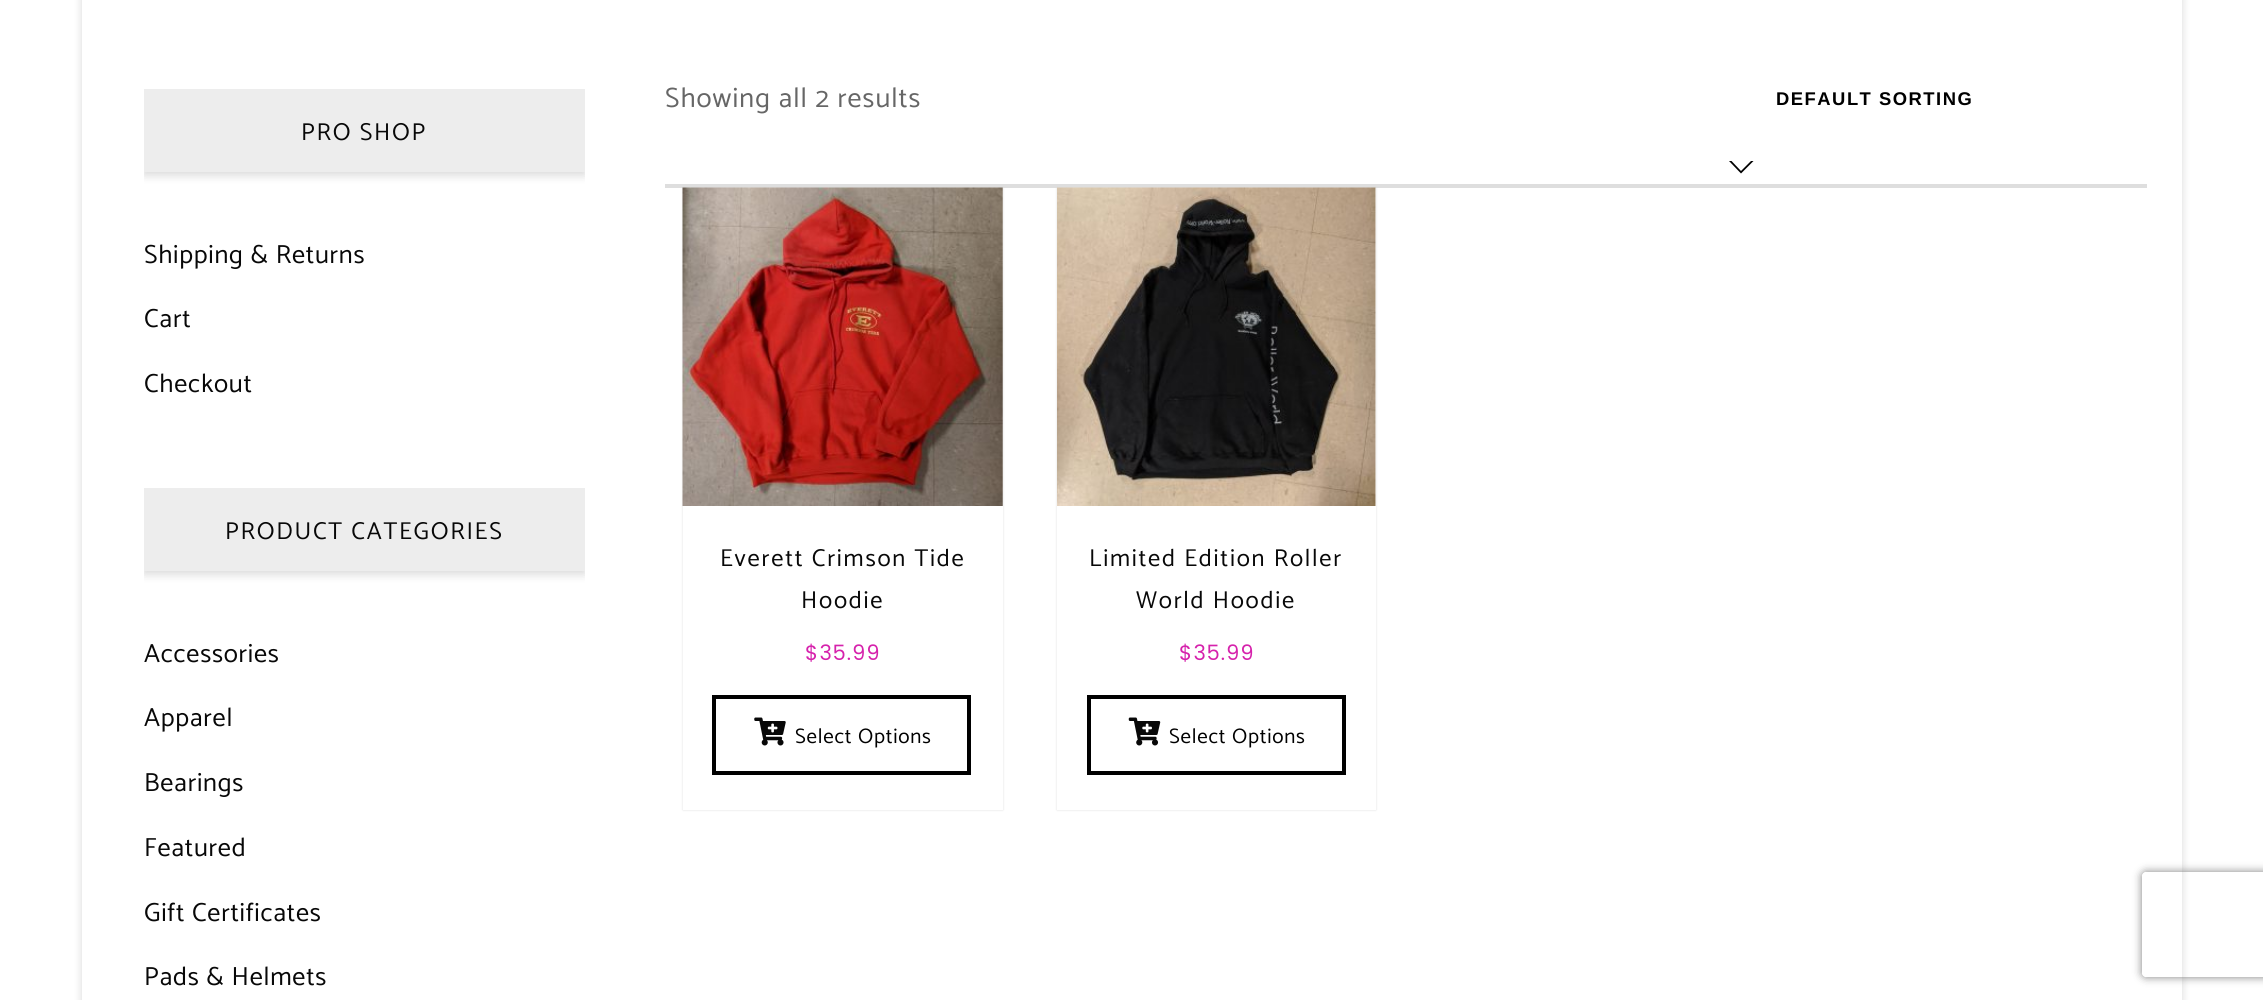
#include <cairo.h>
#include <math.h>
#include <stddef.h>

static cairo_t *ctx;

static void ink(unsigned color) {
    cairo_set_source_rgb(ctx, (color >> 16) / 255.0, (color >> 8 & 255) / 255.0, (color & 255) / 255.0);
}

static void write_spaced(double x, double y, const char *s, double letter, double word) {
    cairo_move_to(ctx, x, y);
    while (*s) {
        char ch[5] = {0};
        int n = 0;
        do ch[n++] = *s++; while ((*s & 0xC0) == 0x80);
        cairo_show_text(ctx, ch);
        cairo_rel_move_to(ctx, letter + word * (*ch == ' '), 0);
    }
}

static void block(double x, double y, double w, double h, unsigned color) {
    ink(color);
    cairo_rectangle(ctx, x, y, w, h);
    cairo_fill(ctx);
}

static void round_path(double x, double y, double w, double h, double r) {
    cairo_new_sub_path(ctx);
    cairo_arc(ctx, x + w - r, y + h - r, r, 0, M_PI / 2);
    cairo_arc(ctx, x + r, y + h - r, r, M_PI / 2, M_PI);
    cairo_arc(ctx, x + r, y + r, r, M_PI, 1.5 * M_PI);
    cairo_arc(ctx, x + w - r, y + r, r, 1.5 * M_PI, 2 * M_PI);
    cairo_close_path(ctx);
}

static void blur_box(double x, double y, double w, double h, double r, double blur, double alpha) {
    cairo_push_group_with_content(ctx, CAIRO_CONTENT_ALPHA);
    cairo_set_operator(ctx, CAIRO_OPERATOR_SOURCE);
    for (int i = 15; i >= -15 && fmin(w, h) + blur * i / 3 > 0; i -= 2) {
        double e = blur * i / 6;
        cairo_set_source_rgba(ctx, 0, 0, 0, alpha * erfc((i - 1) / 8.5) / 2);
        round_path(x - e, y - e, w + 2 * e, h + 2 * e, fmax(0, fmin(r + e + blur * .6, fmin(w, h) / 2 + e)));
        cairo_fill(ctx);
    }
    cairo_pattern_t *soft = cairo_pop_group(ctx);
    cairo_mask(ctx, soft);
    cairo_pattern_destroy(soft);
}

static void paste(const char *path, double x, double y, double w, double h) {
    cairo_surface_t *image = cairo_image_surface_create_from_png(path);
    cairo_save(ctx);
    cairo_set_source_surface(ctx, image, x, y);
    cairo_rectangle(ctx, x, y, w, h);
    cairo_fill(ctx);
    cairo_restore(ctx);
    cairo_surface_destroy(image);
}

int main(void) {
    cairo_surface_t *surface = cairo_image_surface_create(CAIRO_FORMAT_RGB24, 2263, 1000);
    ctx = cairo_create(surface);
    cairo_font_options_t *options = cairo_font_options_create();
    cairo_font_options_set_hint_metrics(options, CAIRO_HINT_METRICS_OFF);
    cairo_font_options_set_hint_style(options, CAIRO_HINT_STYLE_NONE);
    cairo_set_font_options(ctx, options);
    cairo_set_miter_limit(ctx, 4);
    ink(0xffffff);
    cairo_paint(ctx);
    ink(0x000000);
    blur_box(82, -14, 2100, 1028, 0, 4.5, 0.15);
    block(82, 0, 2100, 1000, 0xffffff);
    cairo_save(ctx);
    cairo_rectangle(ctx, 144, 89, 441, 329);
    cairo_clip(ctx);
    ink(0x000000);
    blur_box(144, 93, 441, 82, 0, 5, 0.16);
    cairo_restore(ctx);
    block(144, 89, 441, 83, 0xededed);
    cairo_select_font_face(ctx, "Catamaran", CAIRO_FONT_SLANT_NORMAL, CAIRO_FONT_WEIGHT_NORMAL);
    cairo_set_font_size(ctx, 24.5);
    ink(0x080808);
    write_spaced(301, 140, "PRO SHOP", 1.75, 0);
    cairo_set_font_size(ctx, 26.25);
    write_spaced(144, 263, "Shipping & Returns", 0.75, 0);
    write_spaced(144, 327, "Cart", 0.75, 0);
    write_spaced(144, 392, "Checkout", 0.75, 0);
    cairo_save(ctx);
    cairo_rectangle(ctx, 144, 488, 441, 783);
    cairo_clip(ctx);
    ink(0x000000);
    blur_box(144, 492, 441, 82, 0, 5, 0.16);
    cairo_restore(ctx);
    block(144, 488, 441, 83, 0xededed);
    cairo_set_font_size(ctx, 24.5);
    ink(0x080808);
    write_spaced(225, 539, "PRODUCT CATEGORIES", 1.75, 0);
    cairo_set_font_size(ctx, 26.25);
    write_spaced(144, 662, "Accessories", 0.75, 0);
    write_spaced(144, 726, "Apparel", 0.75, 0);
    write_spaced(144, 791, "Bearings", 0.75, 0);
    write_spaced(144, 856, "Featured", 0.75, 0);
    write_spaced(144, 921, "Gift Certificates", 0.75, 0);
    write_spaced(144, 985, "Pads & Helmets", 0.75, 0);
    cairo_set_font_size(ctx, 28);
    ink(0x666666);
    write_spaced(665, 107, "Showing all 2 results", 1.05, 0);
    cairo_select_font_face(ctx, "Liberation Sans", CAIRO_FONT_SLANT_NORMAL, CAIRO_FONT_WEIGHT_BOLD);
    cairo_set_font_size(ctx, 18.4);
    ink(0x000000);
    write_spaced(1776, 105, "DEFAULT SORTING", 1.5, 0);
    cairo_new_path(ctx);
    cairo_move_to(ctx, 1753.5, 161);
    cairo_line_to(ctx, 1741, 173.5);
    cairo_line_to(ctx, 1741, 171);
    cairo_line_to(ctx, 1751, 161);
    cairo_close_path(ctx);
    cairo_move_to(ctx, 1741, 173.5);
    cairo_line_to(ctx, 1729, 161);
    cairo_line_to(ctx, 1731.5, 161);
    cairo_line_to(ctx, 1741, 171);
    cairo_close_path(ctx);
    cairo_fill(ctx);
    block(665, 184, 1482, 4, 0xdedede);
    cairo_save(ctx);
    cairo_set_fill_rule(ctx, CAIRO_FILL_RULE_EVEN_ODD);
    cairo_new_path(ctx);
    cairo_move_to(ctx, 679, 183);
    cairo_line_to(ctx, 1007, 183);
    cairo_line_to(ctx, 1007, 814);
    cairo_line_to(ctx, 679, 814);
    cairo_close_path(ctx);
    cairo_move_to(ctx, 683, 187);
    cairo_line_to(ctx, 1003, 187);
    cairo_line_to(ctx, 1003, 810);
    cairo_line_to(ctx, 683, 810);
    cairo_close_path(ctx);
    cairo_clip(ctx);
    ink(0xdddddd);
    blur_box(683, 187, 320, 623, 0, 1, 1);
    cairo_restore(ctx);
    paste("pic1.png", 682, 187, 321, 319);
    cairo_select_font_face(ctx, "Catamaran", CAIRO_FONT_SLANT_NORMAL, CAIRO_FONT_WEIGHT_NORMAL);
    cairo_set_font_size(ctx, 24.5);
    ink(0x080808);
    write_spaced(720, 566, "Everett Crimson Tide", 1.75, 0);
    write_spaced(801, 608, "Hoodie", 1.75, 0);
    cairo_select_font_face(ctx, "Poppins", CAIRO_FONT_SLANT_NORMAL, CAIRO_FONT_WEIGHT_NORMAL);
    cairo_set_font_size(ctx, 21);
    ink(0xd622ac);
    write_spaced(805, 660, "$35.99", 0.75, 0);
    cairo_rectangle(ctx, 714, 697, 255, 76);
    ink(0x000000);
    cairo_set_line_width(ctx, 4);
    cairo_stroke(ctx);
    paste("pic2.png", 754, 717, 32, 29);
    cairo_select_font_face(ctx, "Catamaran", CAIRO_FONT_SLANT_NORMAL, CAIRO_FONT_WEIGHT_NORMAL);
    write_spaced(795, 743, "Select Options", 0.75, 0);
    cairo_save(ctx);
    cairo_set_fill_rule(ctx, CAIRO_FILL_RULE_EVEN_ODD);
    cairo_new_path(ctx);
    cairo_move_to(ctx, 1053, 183);
    cairo_line_to(ctx, 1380, 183);
    cairo_line_to(ctx, 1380, 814);
    cairo_line_to(ctx, 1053, 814);
    cairo_close_path(ctx);
    cairo_move_to(ctx, 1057, 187);
    cairo_line_to(ctx, 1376, 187);
    cairo_line_to(ctx, 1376, 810);
    cairo_line_to(ctx, 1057, 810);
    cairo_close_path(ctx);
    cairo_clip(ctx);
    ink(0xdddddd);
    blur_box(1057, 187, 319, 623, 0, 1, 1);
    cairo_restore(ctx);
    paste("pic3.png", 1057, 187, 319, 319);
    cairo_set_font_size(ctx, 24.5);
    ink(0x080808);
    write_spaced(1089, 566, "Limited Edition Roller", 1.75, 0);
    write_spaced(1136, 608, "World Hoodie", 1.75, 0);
    cairo_select_font_face(ctx, "Poppins", CAIRO_FONT_SLANT_NORMAL, CAIRO_FONT_WEIGHT_NORMAL);
    cairo_set_font_size(ctx, 21);
    ink(0xd622ac);
    write_spaced(1179, 660, "$35.99", 0.75, 0);
    cairo_rectangle(ctx, 1089, 697, 255, 76);
    ink(0x000000);
    cairo_stroke(ctx);
    paste("pic4.png", 1128, 717, 33, 29);
    cairo_select_font_face(ctx, "Catamaran", CAIRO_FONT_SLANT_NORMAL, CAIRO_FONT_WEIGHT_NORMAL);
    write_spaced(1169, 743, "Select Options", 0.75, 0);
    cairo_save(ctx);
    cairo_set_fill_rule(ctx, CAIRO_FILL_RULE_EVEN_ODD);
    cairo_new_path(ctx);
    cairo_move_to(ctx, 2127, 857);
    cairo_line_to(ctx, 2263, 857);
    cairo_line_to(ctx, 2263, 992);
    cairo_line_to(ctx, 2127, 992);
    cairo_close_path(ctx);
    cairo_move_to(ctx, 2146, 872);
    cairo_line_to(ctx, 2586, 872);
    cairo_curve_to(ctx, 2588, 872, 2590, 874, 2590, 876);
    cairo_line_to(ctx, 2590, 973);
    cairo_curve_to(ctx, 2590, 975, 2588, 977, 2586, 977);
    cairo_line_to(ctx, 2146, 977);
    cairo_curve_to(ctx, 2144, 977, 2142, 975, 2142, 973);
    cairo_line_to(ctx, 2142, 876);
    cairo_curve_to(ctx, 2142, 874, 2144, 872, 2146, 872);
    cairo_close_path(ctx);
    cairo_clip(ctx);
    ink(0x808080);
    blur_box(2142, 872, 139, 105, 4, 4.5, 1);
    cairo_restore(ctx);
    cairo_surface_write_to_png(surface, "screenshot.png");
    cairo_font_options_destroy(options);
    cairo_destroy(ctx);
    cairo_surface_destroy(surface);
    return 0;
}
